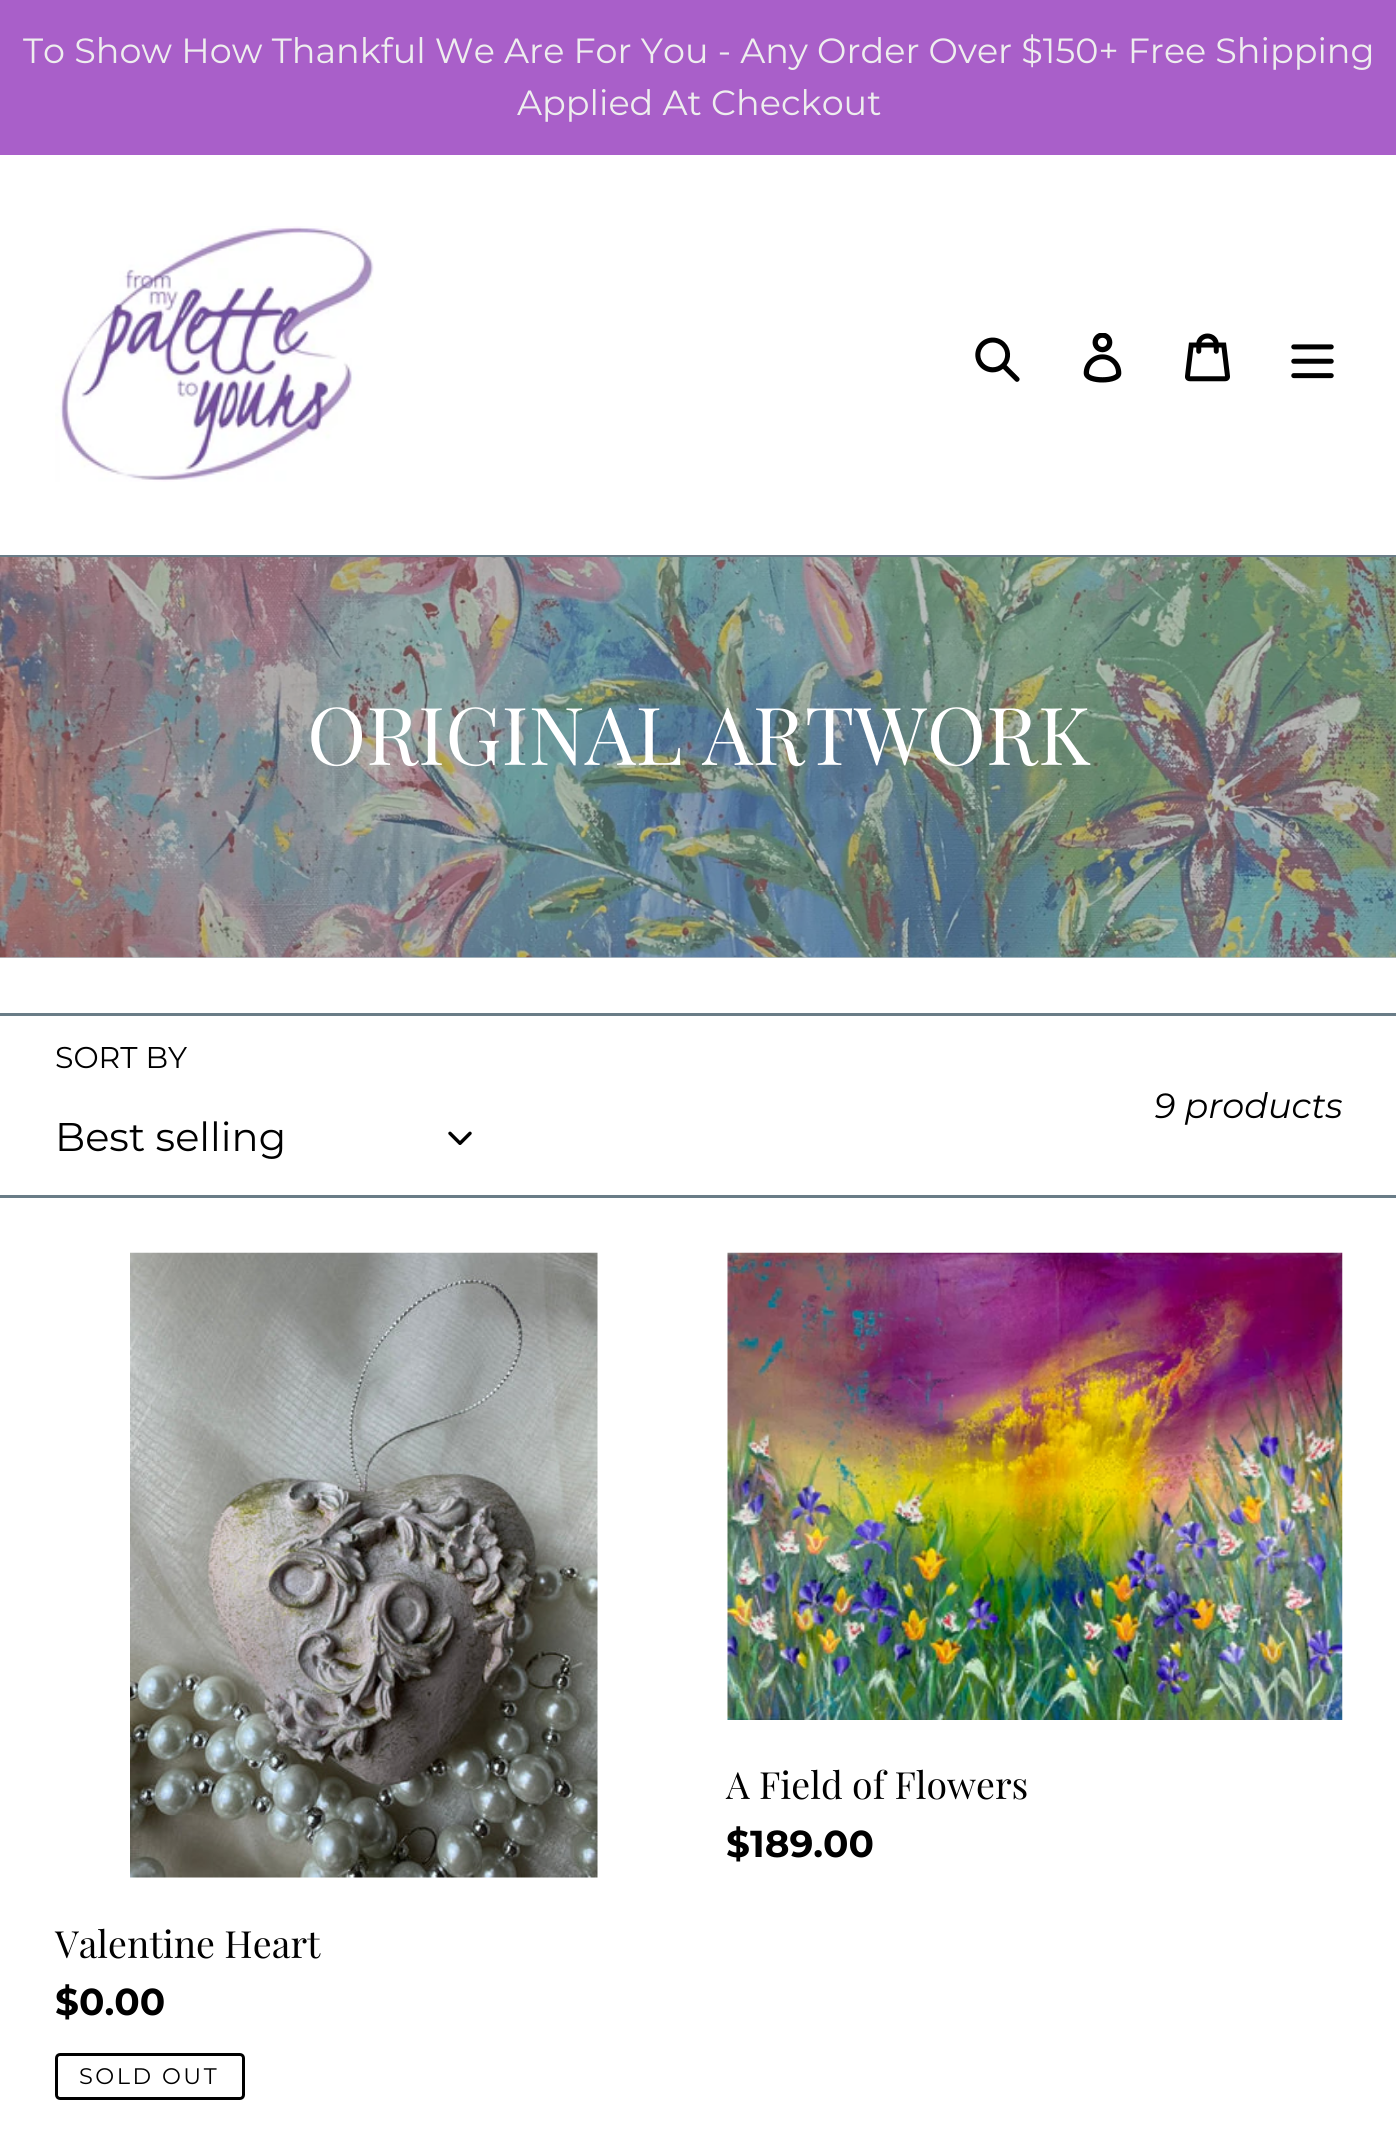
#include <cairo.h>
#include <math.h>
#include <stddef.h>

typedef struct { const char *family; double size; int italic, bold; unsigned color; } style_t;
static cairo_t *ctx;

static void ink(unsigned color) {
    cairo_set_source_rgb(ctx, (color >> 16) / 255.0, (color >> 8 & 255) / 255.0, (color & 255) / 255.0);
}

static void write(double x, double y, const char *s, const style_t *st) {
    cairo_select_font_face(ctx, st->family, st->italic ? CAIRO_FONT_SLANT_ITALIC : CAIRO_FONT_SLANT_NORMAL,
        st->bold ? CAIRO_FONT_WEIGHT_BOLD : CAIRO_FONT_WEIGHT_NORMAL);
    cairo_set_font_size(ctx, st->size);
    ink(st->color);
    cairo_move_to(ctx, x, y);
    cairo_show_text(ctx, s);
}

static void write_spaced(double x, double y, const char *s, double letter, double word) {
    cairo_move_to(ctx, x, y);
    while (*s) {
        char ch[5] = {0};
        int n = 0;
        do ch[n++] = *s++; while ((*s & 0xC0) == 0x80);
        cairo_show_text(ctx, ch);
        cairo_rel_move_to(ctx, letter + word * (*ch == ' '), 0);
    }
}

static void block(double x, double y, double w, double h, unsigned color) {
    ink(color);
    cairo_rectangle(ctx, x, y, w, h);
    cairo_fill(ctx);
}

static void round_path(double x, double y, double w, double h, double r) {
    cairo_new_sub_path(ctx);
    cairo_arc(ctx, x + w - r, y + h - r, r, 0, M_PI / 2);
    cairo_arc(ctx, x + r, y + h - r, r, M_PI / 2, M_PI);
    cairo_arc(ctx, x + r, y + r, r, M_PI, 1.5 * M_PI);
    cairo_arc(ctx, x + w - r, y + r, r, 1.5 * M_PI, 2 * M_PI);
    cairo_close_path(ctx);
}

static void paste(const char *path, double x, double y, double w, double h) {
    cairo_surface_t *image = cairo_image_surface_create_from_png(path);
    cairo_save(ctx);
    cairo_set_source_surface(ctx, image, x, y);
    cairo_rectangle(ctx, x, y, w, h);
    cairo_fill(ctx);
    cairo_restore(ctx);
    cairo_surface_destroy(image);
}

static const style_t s1 = {"Montserrat", 35, 0, 0, 0xeeeeee};
static const style_t s2 = {"Playfair Display", 80, 0, 0, 0xffffff};
static const style_t s3 = {"Montserrat", 30, 0, 0, 0x000000};
static const style_t s4 = {"Montserrat", 40, 0, 0, 0x000000};
static const style_t s5 = {"Montserrat", 35, 1, 0, 0x000000};
static const style_t s6 = {"Playfair Display", 37.5, 0, 0, 0x000000};
static const style_t s7 = {"Montserrat", 37.5, 0, 1, 0x000000};

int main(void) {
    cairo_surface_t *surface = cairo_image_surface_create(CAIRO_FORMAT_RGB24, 1396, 2139);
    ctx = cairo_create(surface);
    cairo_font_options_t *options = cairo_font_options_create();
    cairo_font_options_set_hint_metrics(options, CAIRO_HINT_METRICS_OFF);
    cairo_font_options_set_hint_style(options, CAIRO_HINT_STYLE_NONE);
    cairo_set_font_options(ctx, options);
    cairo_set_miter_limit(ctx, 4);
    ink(0xffffff);
    cairo_paint(ctx);
    block(0, 957, 1396, 1, 0xb7c0c5);
    block(0, 0, 1396, 155, 0xa95fc9);
    write(23, 63, "To Show How Thankful We Are For You - Any Order Over $150+ Free Shipping", &s1);
    write(517, 115, "Applied At Checkout", &s1);
    block(0, 555, 1396, 3, 0x697c87);
    paste("pic1.png", 55, 226, 319, 256);
    paste("pic2.png", 975, 337, 45, 45);
    paste("pic3.png", 1083, 333, 39, 50);
    paste("pic4.png", 1185, 333, 45, 49);
    paste("pic5.png", 1291, 344, 43, 35);
    paste("pic6.png", 0, 557, 1396, 401);
    write(307, 765, "ORIGINAL ARTWORK", &s2);
    block(0, 1013, 1396, 3, 0x697c87);
    block(0, 1195, 1396, 3, 0x697c87);
    write(55, 1068, "SORT BY", &s3);
    write(55, 1151, "Best selling", &s4);
    paste("pic7.png", 448, 1131, 24, 14);
    write(1154, 1118, "9 products", &s5);
    paste("pic8.png", 727, 1252, 616, 468);
    write(726, 1799, "A Field of Flowers", &s6);
    write(726, 1857, "$189.00", &s7);
    paste("pic9.png", 130, 1252, 468, 626);
    write(55, 1958, "Valentine Heart", &s6);
    write(55, 2015, "$0.00", &s7);
    round_path(56.5, 2054.5, 187, 44, 3.5);
    cairo_set_line_width(ctx, 3);
    cairo_stroke(ctx);
    cairo_select_font_face(ctx, "Montserrat", CAIRO_FONT_SLANT_NORMAL, CAIRO_FONT_WEIGHT_NORMAL);
    cairo_set_font_size(ctx, 22.5);
    write_spaced(79, 2084, "SOLD OUT", 2.5, 0);
    cairo_surface_write_to_png(surface, "screenshot.png");
    cairo_font_options_destroy(options);
    cairo_destroy(ctx);
    cairo_surface_destroy(surface);
    return 0;
}
